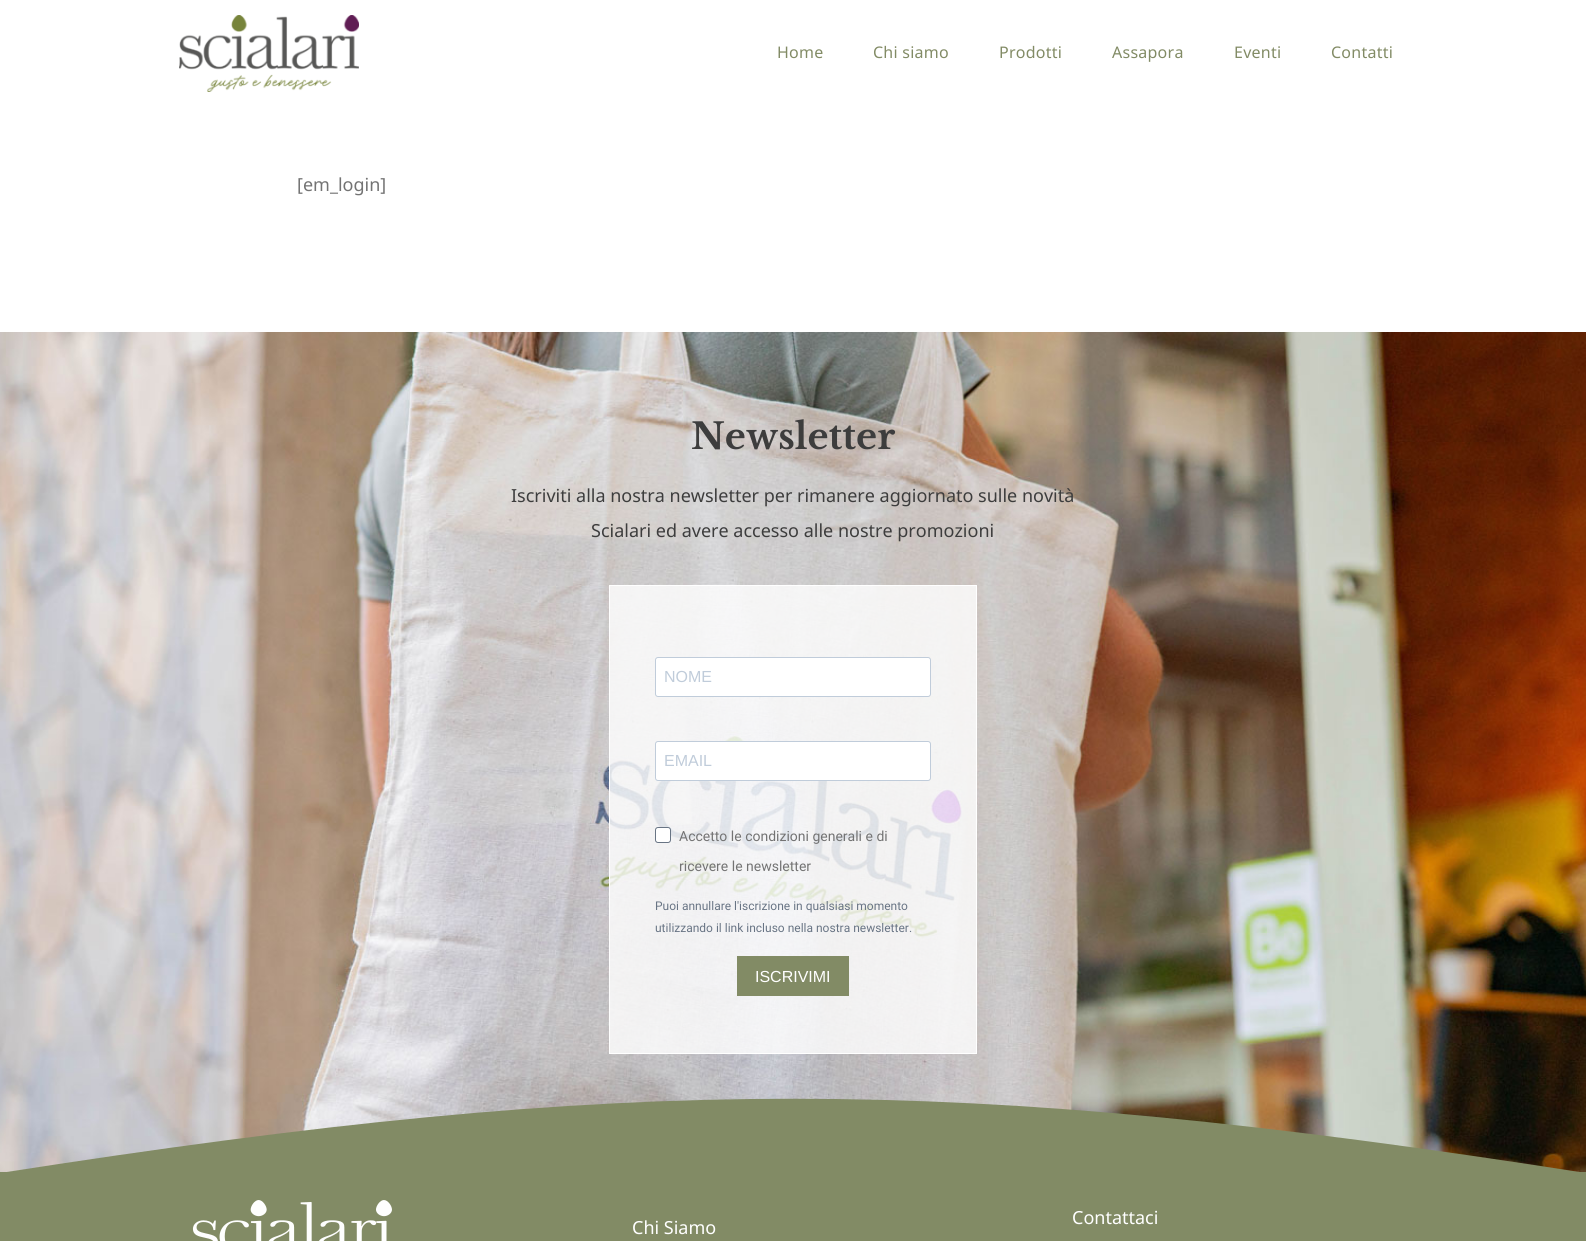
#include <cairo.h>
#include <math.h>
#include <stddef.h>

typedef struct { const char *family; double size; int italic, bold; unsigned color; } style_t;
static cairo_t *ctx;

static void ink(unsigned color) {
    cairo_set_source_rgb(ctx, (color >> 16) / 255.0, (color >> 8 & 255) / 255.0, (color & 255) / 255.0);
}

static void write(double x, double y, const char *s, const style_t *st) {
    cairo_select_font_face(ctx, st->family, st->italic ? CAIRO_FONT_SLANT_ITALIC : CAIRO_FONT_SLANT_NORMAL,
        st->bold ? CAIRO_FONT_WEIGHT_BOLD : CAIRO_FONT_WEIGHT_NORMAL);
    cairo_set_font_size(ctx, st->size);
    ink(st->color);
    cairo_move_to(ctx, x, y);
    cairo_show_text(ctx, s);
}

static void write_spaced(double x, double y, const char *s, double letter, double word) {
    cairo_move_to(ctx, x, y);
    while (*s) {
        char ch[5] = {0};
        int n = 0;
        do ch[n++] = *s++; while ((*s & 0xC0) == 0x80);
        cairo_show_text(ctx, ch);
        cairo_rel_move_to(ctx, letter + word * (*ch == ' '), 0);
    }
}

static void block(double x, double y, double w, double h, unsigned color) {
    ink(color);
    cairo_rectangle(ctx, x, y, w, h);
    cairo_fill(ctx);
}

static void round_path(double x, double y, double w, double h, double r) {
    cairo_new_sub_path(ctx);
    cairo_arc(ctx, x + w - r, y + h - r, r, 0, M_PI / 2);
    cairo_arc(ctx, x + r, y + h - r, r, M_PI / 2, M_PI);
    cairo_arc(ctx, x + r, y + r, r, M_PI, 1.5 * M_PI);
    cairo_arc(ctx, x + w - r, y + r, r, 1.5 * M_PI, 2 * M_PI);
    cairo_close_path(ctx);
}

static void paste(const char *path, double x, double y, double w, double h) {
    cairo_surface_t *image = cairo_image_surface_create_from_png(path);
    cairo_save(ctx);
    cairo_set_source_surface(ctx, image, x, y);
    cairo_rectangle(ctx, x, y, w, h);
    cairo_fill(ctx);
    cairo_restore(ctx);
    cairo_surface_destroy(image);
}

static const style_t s1 = {"Noto Sans", 18, 0, 0, 0x737373};
static const style_t s2 = {"Libre Baskerville", 36, 0, 1, 0x3d3d3d};
static const style_t s3 = {"Noto Sans", 18, 0, 0, 0x3d3d3d};
static const style_t s4 = {"Liberation Sans", 16, 0, 0, 0xc0ccda};
static const style_t s5 = {"Roboto", 14, 0, 0, 0x737373};
static const style_t s6 = {"Roboto", 12, 0, 0, 0x687484};
static const style_t s7 = {"Liberation Sans", 16, 0, 0, 0xffffff};
static const style_t s8 = {"Noto Sans", 18, 0, 0, 0xffffff};

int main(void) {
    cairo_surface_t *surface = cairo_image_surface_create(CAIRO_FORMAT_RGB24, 1586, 1241);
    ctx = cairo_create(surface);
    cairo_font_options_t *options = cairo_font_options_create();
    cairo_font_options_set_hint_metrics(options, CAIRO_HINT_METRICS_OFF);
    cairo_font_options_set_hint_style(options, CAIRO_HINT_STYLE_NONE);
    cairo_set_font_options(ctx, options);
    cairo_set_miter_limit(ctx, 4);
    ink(0xffffff);
    cairo_paint(ctx);
    paste("pic1.png", 179, 15, 180, 77);
    cairo_select_font_face(ctx, "Noto Sans", CAIRO_FONT_SLANT_NORMAL, CAIRO_FONT_WEIGHT_NORMAL);
    cairo_set_font_size(ctx, 16);
    ink(0x828b65);
    write_spaced(777, 58, "Home", 0.25, 0);
    write_spaced(873, 58, "Chi siamo", 0.25, 0);
    write_spaced(999, 58, "Prodotti", 0.25, 0);
    write_spaced(1112, 58, "Assapora", 0.25, 0);
    write_spaced(1234, 58, "Eventi", 0.25, 0);
    write_spaced(1331, 58, "Contatti", 0.25, 0);
    write(297, 191, "[em_login]", &s1);
    paste("pic2.png", 0, 332, 1586, 840);
    write(691, 449, "Newsletter", &s2);
    write(511, 502, "Iscriviti alla nostra newsletter per rimanere aggiornato sulle novità", &s3);
    write(591, 537, "Scialari ed avere accesso alle nostre promozioni", &s3);
    cairo_set_source_rgba(ctx, 1, 1, 1, 0.8);
    cairo_rectangle(ctx, 609.5, 585.5, 367, 468);
    cairo_fill_preserve(ctx);
    ink(0xffffff);
    cairo_set_line_width(ctx, 1);
    cairo_stroke(ctx);
    round_path(655.5, 657.5, 275, 39, 2.5);
    cairo_fill_preserve(ctx);
    ink(0xc0ccda);
    cairo_stroke(ctx);
    write(664, 682, "NOME", &s4);
    ink(0xffffff);
    round_path(655.5, 741.5, 275, 39, 2.5);
    cairo_fill_preserve(ctx);
    ink(0xc0ccda);
    cairo_stroke(ctx);
    write(664, 766, "EMAIL", &s4);
    ink(0xffffff);
    round_path(655.5, 827.5, 15, 15, 2.5);
    cairo_fill_preserve(ctx);
    ink(0x687484);
    cairo_stroke(ctx);
    write(679, 841, "Accetto le condizioni generali e di", &s5);
    write(679, 871, "ricevere le newsletter", &s5);
    write(655, 910, "Puoi annullare l'iscrizione in qualsiasi momento", &s6);
    write(655, 932, "utilizzando il link incluso nella nostra newsletter.", &s6);
    block(737, 956, 112, 40, 0x828b65);
    write(755, 982, "ISCRIVIMI", &s7);
    block(0, 1172, 1586, 69, 0x828b65);
    cairo_new_path(ctx);
    cairo_move_to(ctx, 0, 1173);
    cairo_curve_to(ctx, 634, 1074, 952, 1074, 1586, 1173);
    cairo_close_path(ctx);
    cairo_fill(ctx);
    paste("pic3.png", 192, 1200, 200, 41);
    write(1072, 1224, "Contattaci", &s8);
    write(632, 1234, "Chi Siamo", &s8);
    cairo_surface_write_to_png(surface, "screenshot.png");
    cairo_font_options_destroy(options);
    cairo_destroy(ctx);
    cairo_surface_destroy(surface);
    return 0;
}
